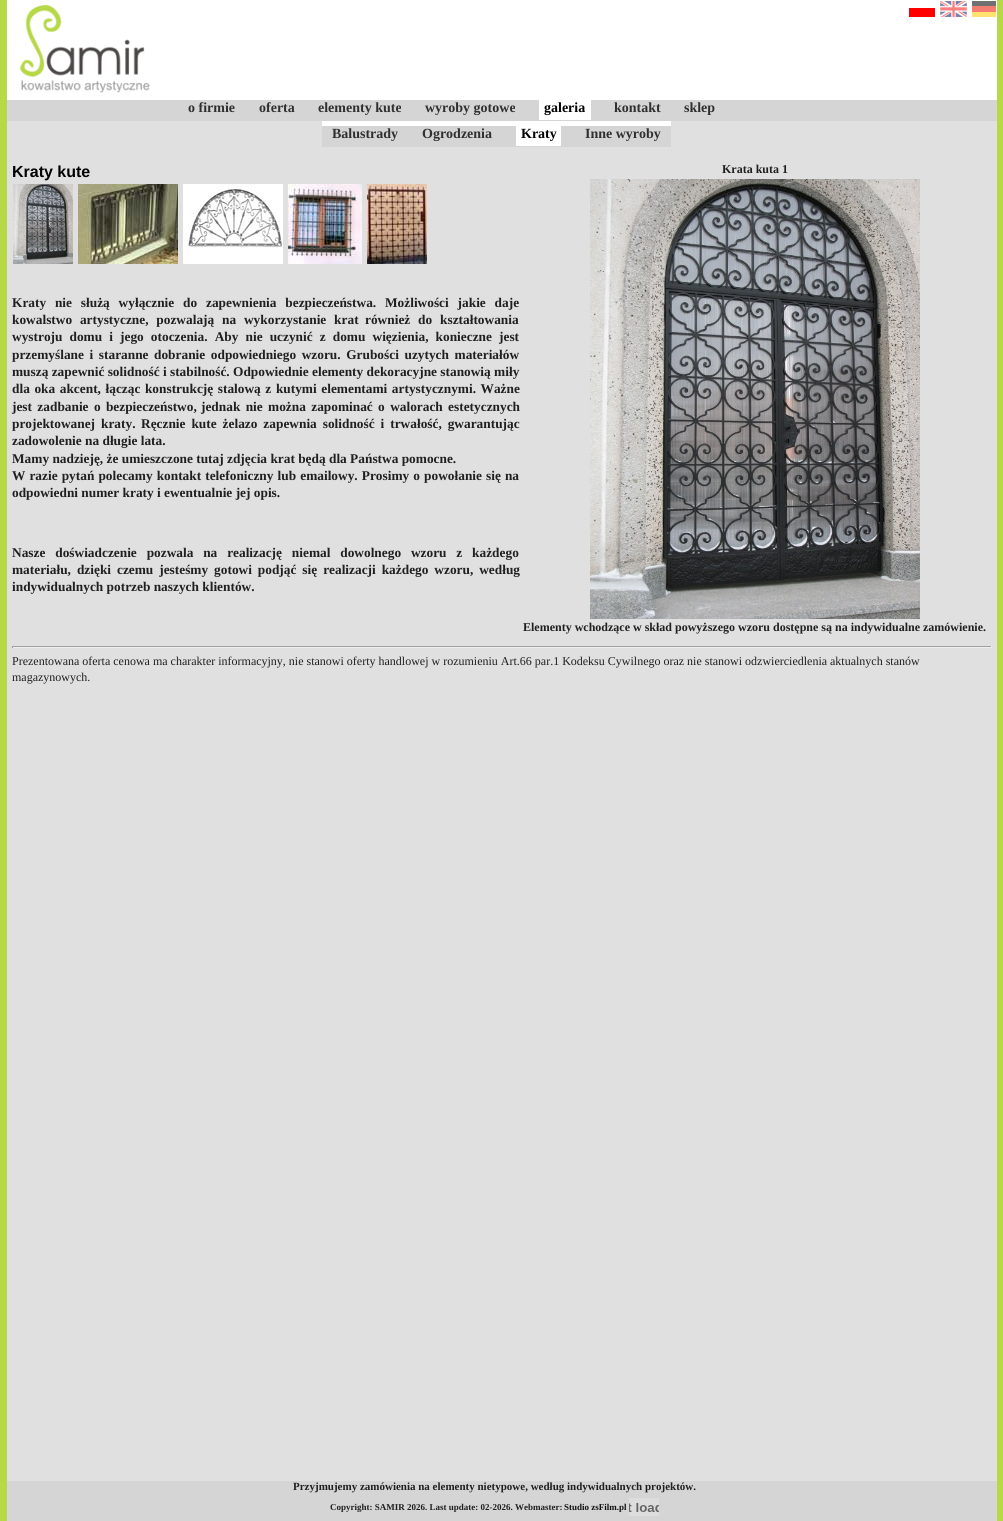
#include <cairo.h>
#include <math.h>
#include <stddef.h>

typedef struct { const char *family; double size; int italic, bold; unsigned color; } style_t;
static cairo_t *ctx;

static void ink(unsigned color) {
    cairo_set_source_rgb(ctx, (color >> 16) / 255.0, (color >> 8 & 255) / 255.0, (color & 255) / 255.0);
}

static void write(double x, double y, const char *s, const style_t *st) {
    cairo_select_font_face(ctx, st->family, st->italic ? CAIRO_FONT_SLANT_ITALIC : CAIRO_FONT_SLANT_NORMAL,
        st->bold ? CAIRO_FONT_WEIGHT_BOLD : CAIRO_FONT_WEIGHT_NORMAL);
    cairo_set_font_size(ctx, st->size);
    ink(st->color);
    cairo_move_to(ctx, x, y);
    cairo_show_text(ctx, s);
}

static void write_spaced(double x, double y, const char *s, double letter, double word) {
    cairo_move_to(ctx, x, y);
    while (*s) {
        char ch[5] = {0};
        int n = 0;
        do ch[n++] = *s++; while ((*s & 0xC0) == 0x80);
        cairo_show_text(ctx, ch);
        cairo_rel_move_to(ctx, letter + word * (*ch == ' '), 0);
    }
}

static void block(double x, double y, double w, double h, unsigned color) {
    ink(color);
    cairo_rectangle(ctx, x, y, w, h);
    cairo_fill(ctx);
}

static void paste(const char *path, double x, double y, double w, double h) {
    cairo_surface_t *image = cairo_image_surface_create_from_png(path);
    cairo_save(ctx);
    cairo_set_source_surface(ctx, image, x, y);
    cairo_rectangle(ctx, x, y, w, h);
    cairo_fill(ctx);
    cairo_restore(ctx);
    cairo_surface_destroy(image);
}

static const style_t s1 = {"Liberation Serif", 14, 0, 1, 0x303030};
static const style_t s2 = {"Liberation Serif", 14, 0, 1, 0x000000};
static const style_t s3 = {"Liberation Sans", 16, 0, 1, 0x000000};
static const style_t s4 = {"Liberation Serif", 12, 0, 1, 0x202020};
static const style_t s5 = {"Liberation Serif", 13.35, 0, 1, 0x202020};
static const style_t s6 = {"Liberation Serif", 12, 0, 0, 0x202020};
static const style_t s7 = {"Liberation Serif", 11, 0, 1, 0x202020};
static const style_t s8 = {"Liberation Serif", 9, 0, 1, 0x202020};
static const style_t s9 = {"Liberation Serif", 9, 0, 1, 0x101010};

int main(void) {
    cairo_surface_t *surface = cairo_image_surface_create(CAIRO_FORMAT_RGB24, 1003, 1521);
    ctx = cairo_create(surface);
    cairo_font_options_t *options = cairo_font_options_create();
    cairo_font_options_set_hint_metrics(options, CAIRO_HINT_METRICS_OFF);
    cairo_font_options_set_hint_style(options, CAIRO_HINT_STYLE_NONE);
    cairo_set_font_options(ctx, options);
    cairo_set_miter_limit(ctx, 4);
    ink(0xb7d847);
    cairo_paint(ctx);
    block(7, 121, 990, 1360, 0xe0e0e0);
    block(7, 0, 990, 100, 0xffffff);
    paste("pic1.png", 20, 4, 130, 89);
    block(909, 8, 26, 9, 0xff0000);
    paste("pic2.png", 940, 1, 27, 16);
    paste("pic3.png", 972, 1, 24, 16);
    block(7, 100, 990, 21, 0xd5d5d5);
    write(188, 112, "o firmie", &s1);
    write(259, 112, "oferta", &s1);
    write(318, 112, "elementy kute", &s1);
    write(425, 112, "wyroby gotowe", &s1);
    block(539, 100, 52, 20, 0xffffff);
    write(544, 112, "galeria", &s2);
    write(614, 112, "kontakt", &s1);
    write(684, 112, "sklep", &s1);
    block(322, 126, 349, 21, 0xd5d5d5);
    block(322, 121, 349, 5, 0xffffff);
    write(332, 138, "Balustrady", &s1);
    write(422, 138, "Ogrodzenia", &s1);
    block(516, 126, 45, 20, 0xffffff);
    write(521, 138, "Kraty", &s2);
    write(585, 138, "Inne wyroby", &s1);
    write(12, 177, "Kraty kute", &s3);
    write(722, 173, "Krata kuta 1", &s4);
    paste("pic4.png", 590, 179, 330, 440);
    write(523, 631, "Elementy wchodzące w skład powyższego wzoru dostępne są na indywidualne zamówienie.", &s4);
    paste("pic5.png", 13, 184, 60, 80);
    paste("pic6.png", 78, 184, 100, 80);
    paste("pic7.png", 183, 184, 100, 80);
    paste("pic8.png", 288, 184, 74, 80);
    paste("pic9.png", 367, 184, 60, 80);
    cairo_set_font_size(ctx, 13.35);
    write_spaced(12, 307, "Kraty nie służą wyłącznie do zapewnienia bezpieczeństwa. Możliwości jakie daje", 0, 5.5);
    write_spaced(12, 324, "kowalstwo artystyczne, pozwalają na wykorzystanie krat", 0, 4.5);
    write_spaced(365, 324, "również do kształtowania", 0, 4.5);
    write_spaced(12, 341, "wystroju domu i jego otoczenia. Aby nie uczynić z domu więzienia, konieczne jest", 0, 3.75);
    write_spaced(12, 359, "przemyślane i staranne", 0, 2.25);
    write_spaced(154, 359, "dobranie odpowiedniego wzoru. Grubości uzytych materiałów", 0, 2.25);
    write(12, 376, "muszą zapewnić solidność i stabilność. Odpowiednie elementy dekoracyjne stanowią miły", &s5);
    write_spaced(12, 393, "dla oka akcent, łącząc konstrukcję stalową z kutymi elementami artystycznymi. Ważne", 0, 1.25);
    write_spaced(12, 411, "jest zadbanie o bezpieczeństwo,", 0, 2);
    write_spaced(201, 411, "jednak nie można zapominać o walorach estetycznych", 0, 2);
    write_spaced(12, 428, "projektowanej kraty.", 0, 2.6);
    write_spaced(141, 428, "Ręcznie kute żelazo zapewnia solidność i trwałość, gwarantując", 0, 2.6);
    write(12, 445, "zadowolenie na długie lata.", &s5);
    write(12, 463, "Mamy nadzieję, że umieszczone tutaj zdjęcia krat będą dla Państwa pomocne.", &s5);
    write_spaced(12, 480, "W razie pytań polecamy kontakt telefoniczny lub emailowy. Prosimy o powołanie się na", 0, 0.75);
    write(12, 497, "odpowiedni numer kraty i ewentualnie jej opis.", &s5);
    write_spaced(12, 557, "Nasze doświadczenie pozwala na realizację niemal dowolnego wzoru z każdego", 0, 6.5);
    write_spaced(12, 574, "materiału, dzięki czemu jesteśmy gotowi podjąć się realizacji każdego wzoru, według", 0, 2.6);
    write(12, 591, "indywidualnych potrzeb naszych klientów.", &s5);
    block(12, 646, 980, 1, 0x9f9f9f);
    block(991, 646, 1, 2, 0xeeeeee);
    block(12, 647, 980, 1, 0xeeeeee);
    block(12, 646, 1, 2, 0x9f9f9f);
    write(12, 665, "Prezentowana oferta cenowa ma charakter informacyjny, nie stanowi oferty handlowej w rozumieniu Art.66 par.1 Kodeksu Cywilnego oraz nie stanowi odzwierciedlenia aktualnych stanów", &s6);
    write(12, 681, "magazynowych.", &s6);
    block(7, 1481, 990, 40, 0xd5d5d5);
    write(293, 1490, "Przyjmujemy zamówienia na elementy nietypowe, według indywidualnych projektów.", &s7);
    write(330, 1510, "Copyright: SAMIR 2026. Last update: 02-2026. Webmaster:", &s8);
    write(564, 1510, "Studio zsFilm.pl", &s9);
    paste("pic10.png", 629, 1498, 30, 18);
    cairo_surface_write_to_png(surface, "screenshot.png");
    cairo_font_options_destroy(options);
    cairo_destroy(ctx);
    cairo_surface_destroy(surface);
    return 0;
}
